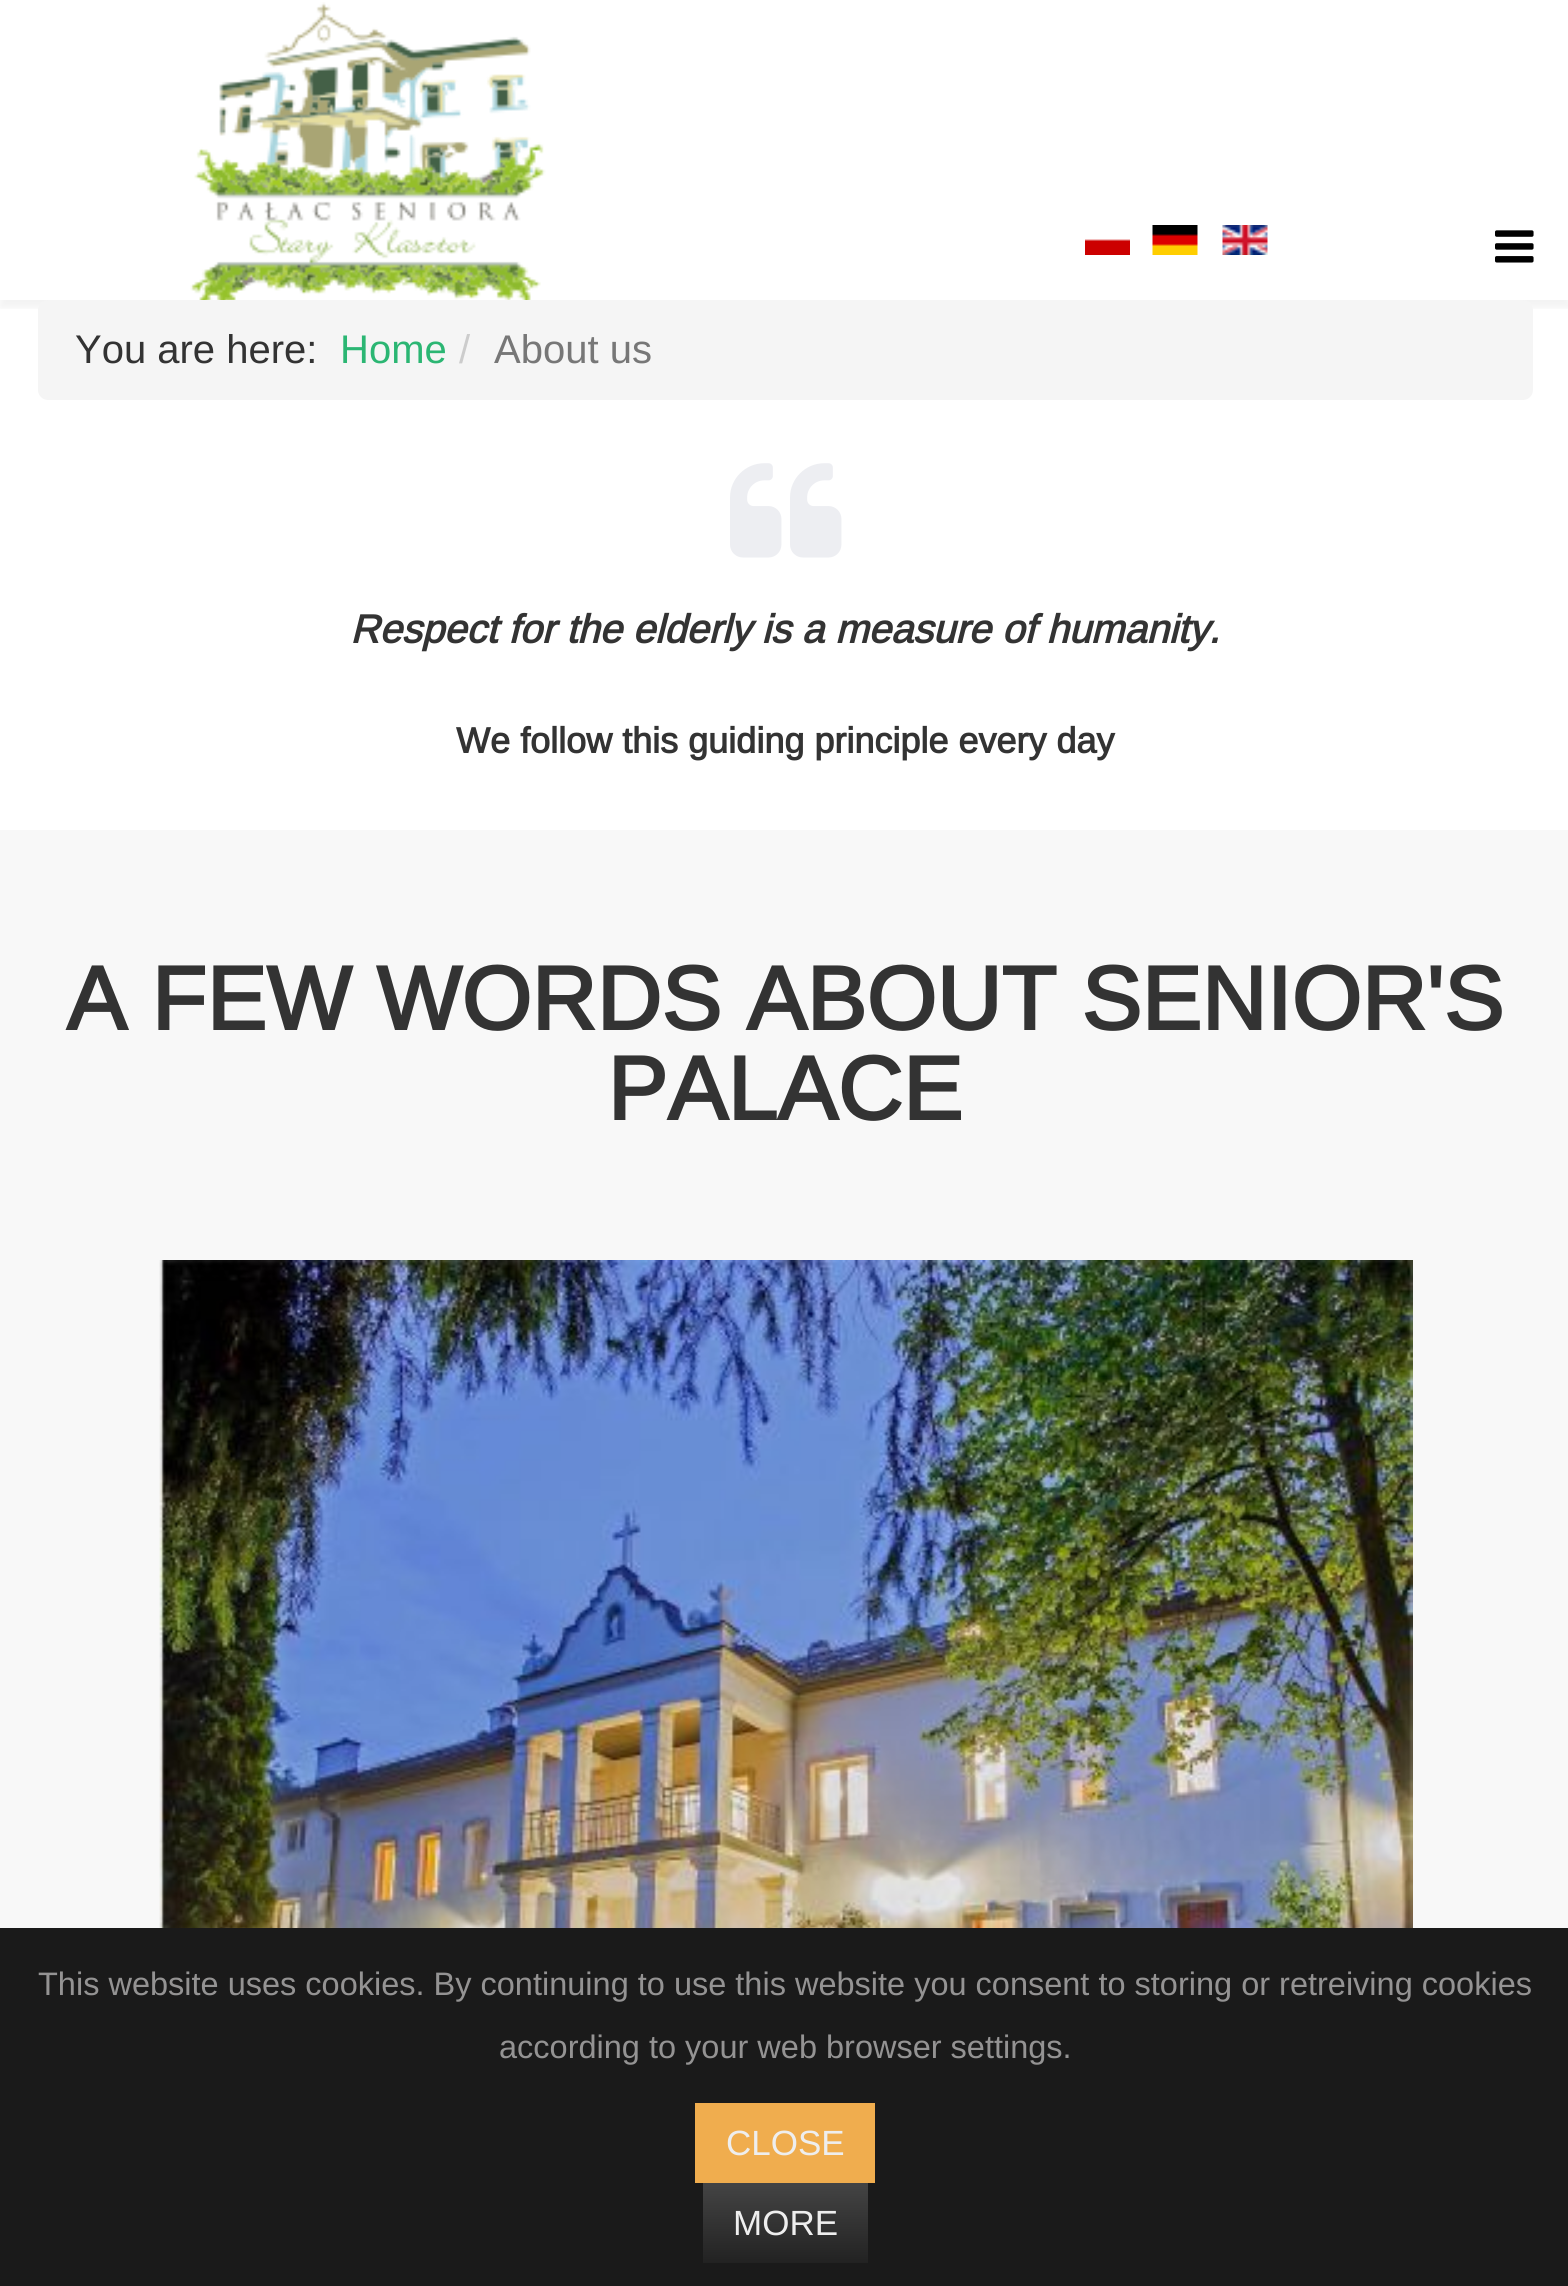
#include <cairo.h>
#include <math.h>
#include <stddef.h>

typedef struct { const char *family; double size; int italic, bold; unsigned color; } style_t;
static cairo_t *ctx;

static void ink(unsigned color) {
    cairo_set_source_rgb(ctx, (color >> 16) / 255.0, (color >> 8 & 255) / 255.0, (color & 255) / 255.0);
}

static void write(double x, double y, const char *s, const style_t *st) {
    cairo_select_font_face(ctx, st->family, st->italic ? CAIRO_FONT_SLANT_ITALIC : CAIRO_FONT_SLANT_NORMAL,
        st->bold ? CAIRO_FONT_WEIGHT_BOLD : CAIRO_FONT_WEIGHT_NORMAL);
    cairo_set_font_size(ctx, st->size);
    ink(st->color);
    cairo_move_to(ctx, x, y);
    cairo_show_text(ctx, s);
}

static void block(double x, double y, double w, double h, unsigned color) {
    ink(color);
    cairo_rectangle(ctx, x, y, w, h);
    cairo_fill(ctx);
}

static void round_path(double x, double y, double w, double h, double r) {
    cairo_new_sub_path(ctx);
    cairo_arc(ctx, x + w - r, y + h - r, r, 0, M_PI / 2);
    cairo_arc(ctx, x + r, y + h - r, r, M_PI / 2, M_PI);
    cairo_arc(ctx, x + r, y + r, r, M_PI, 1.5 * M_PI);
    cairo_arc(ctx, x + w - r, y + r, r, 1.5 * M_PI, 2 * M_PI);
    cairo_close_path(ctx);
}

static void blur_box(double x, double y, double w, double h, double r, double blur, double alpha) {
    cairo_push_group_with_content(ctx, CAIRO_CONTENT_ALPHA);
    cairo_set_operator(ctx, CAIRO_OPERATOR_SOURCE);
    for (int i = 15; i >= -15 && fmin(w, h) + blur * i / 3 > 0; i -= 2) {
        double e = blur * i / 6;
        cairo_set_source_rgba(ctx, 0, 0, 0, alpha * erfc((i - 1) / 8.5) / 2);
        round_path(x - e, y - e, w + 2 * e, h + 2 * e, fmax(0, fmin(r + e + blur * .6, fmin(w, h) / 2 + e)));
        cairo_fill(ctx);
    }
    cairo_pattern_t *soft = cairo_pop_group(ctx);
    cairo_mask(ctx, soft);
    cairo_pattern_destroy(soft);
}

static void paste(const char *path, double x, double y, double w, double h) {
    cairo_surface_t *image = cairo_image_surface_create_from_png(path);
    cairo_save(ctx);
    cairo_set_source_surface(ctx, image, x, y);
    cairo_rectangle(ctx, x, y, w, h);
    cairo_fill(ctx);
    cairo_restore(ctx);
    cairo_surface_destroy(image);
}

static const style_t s1 = {"Arimo", 40, 0, 0, 0x333333};
static const style_t s2 = {"Arimo", 40, 0, 0, 0x2bb673};
static const style_t s3 = {"Arimo", 40, 0, 0, 0xcccccc};
static const style_t s4 = {"Arimo", 40, 0, 0, 0x777777};
static const style_t s5 = {"Arimo", 40, 1, 1, 0x333333};
static const style_t s6 = {"Arimo", 36, 0, 1, 0x333333};
static const style_t s7 = {"Arimo", 90, 0, 1, 0x333333};
static const style_t s8 = {"Liberation Sans", 32.5, 0, 0, 0x949393};
static const style_t s9 = {"Arimo", 35, 0, 0, 0xeeeeee};

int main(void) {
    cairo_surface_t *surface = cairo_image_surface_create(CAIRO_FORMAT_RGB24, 1568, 2286);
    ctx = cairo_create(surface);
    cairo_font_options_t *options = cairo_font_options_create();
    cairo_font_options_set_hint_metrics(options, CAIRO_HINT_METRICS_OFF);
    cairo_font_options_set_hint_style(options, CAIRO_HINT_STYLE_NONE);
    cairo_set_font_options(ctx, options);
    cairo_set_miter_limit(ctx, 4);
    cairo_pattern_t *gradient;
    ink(0xffffff);
    cairo_paint(ctx);
    cairo_save(ctx);
    cairo_rectangle(ctx, 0, 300, 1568, 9);
    cairo_clip(ctx);
    ink(0x000000);
    blur_box(0, 8, 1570, 300, 0, 4, 0.05);
    cairo_restore(ctx);
    paste("pic1.png", 190, 2, 356, 298);
    paste("pic2.png", 1085, 239, 45, 16);
    paste("pic3.png", 1152, 225, 46, 30);
    paste("pic4.png", 1222, 225, 46, 30);
    paste("pic5.png", 1495, 230, 39, 33);
    ink(0xf5f5f5);
    round_path(38, 300, 1495, 100, 10);
    cairo_fill(ctx);
    write(75, 363, "You are here:", &s1);
    write(340, 363, "Home", &s2);
    write(459, 363, "/", &s3);
    write(494, 363, "About us", &s4);
    paste("pic6.png", 730, 463, 112, 95);
    write(350, 643, "Respect for the elderly is a measure of humanity.", &s5);
    write(456, 753, "We follow this guiding principle every day", &s6);
    block(0, 830, 1568, 1098, 0xf8f8f8);
    write(66, 1030, "A FEW WORDS ABOUT SENIOR'S", &s7);
    write(607, 1120, "PALACE", &s7);
    paste("pic7.png", 159, 1260, 1254, 668);
    block(0, 1928, 1568, 358, 0x1a1a1a);
    write(38, 1995, "This website uses cookies. By continuing to use this website you consent to storing or retreiving cookies", &s8);
    write(499, 2058, "according to your web browser settings.", &s8);
    block(695, 2103, 180, 80, 0xf0ad4e);
    write(726, 2155, "CLOSE", &s9);
    gradient = cairo_pattern_create_linear(785, 2183, 785, 2263);
    cairo_pattern_add_color_stop_rgba(gradient, 0, 0.267, 0.267, 0.267, 1);
    cairo_pattern_add_color_stop_rgba(gradient, 1, 0.133, 0.133, 0.133, 1);
    cairo_set_source(ctx, gradient);
    cairo_pattern_destroy(gradient);
    cairo_rectangle(ctx, 703, 2183, 165, 80);
    cairo_fill(ctx);
    write(733, 2235, "MORE", &s9);
    cairo_surface_write_to_png(surface, "screenshot.png");
    cairo_font_options_destroy(options);
    cairo_destroy(ctx);
    cairo_surface_destroy(surface);
    return 0;
}
